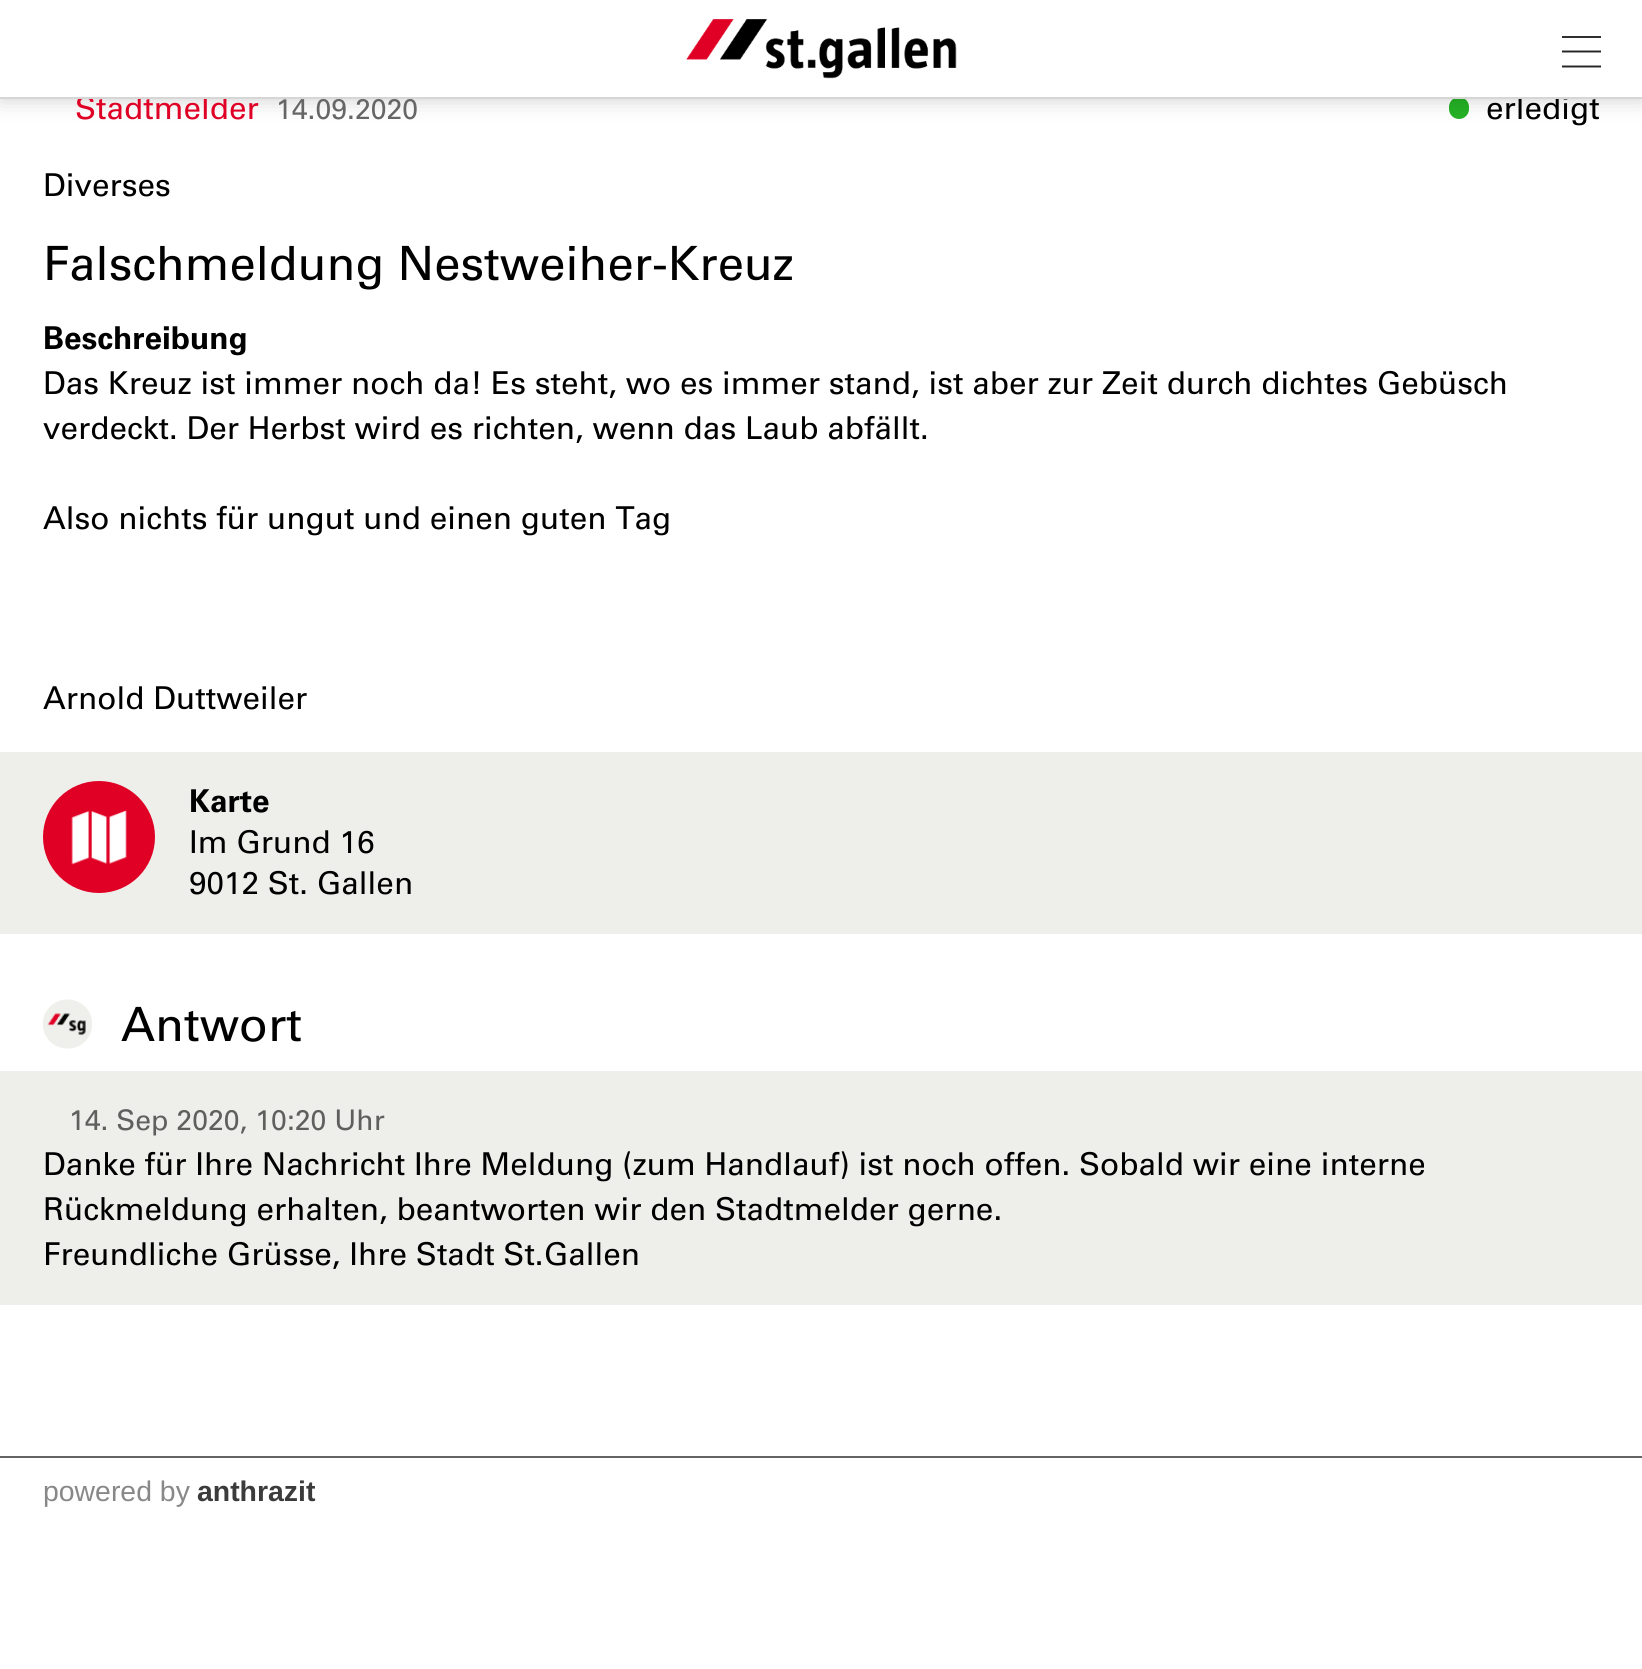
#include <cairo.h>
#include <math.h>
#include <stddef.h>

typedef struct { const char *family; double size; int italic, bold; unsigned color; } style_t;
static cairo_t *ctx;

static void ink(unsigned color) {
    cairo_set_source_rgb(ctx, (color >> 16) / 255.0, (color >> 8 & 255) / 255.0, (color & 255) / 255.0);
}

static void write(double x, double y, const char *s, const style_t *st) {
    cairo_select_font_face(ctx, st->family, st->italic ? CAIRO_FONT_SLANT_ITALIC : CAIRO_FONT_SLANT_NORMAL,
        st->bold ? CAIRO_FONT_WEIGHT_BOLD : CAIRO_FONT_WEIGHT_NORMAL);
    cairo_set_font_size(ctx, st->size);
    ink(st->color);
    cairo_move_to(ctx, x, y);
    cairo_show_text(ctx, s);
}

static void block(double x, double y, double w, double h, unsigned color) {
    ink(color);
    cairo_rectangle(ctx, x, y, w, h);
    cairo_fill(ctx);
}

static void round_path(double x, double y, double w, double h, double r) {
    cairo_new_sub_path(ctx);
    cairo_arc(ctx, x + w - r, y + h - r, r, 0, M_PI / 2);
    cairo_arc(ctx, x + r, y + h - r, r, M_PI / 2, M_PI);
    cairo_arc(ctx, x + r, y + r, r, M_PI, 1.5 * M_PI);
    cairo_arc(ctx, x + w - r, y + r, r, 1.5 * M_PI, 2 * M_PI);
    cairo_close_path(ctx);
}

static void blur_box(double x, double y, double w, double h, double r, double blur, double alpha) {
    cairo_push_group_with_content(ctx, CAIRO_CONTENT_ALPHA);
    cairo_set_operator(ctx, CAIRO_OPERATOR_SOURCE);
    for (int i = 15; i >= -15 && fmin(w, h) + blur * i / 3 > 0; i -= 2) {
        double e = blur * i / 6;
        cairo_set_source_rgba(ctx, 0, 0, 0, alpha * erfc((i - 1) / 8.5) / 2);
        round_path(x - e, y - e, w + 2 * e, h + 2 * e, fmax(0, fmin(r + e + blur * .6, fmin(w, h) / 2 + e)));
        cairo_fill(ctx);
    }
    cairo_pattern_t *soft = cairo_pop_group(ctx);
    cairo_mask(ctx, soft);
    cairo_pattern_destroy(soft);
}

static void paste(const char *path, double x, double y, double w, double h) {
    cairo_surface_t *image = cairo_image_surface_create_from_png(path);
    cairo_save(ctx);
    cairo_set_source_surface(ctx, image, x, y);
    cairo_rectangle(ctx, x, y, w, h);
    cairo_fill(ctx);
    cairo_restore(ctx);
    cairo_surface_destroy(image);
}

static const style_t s1 = {"Univers", 31.5, 0, 0, 0xe00025};
static const style_t s2 = {"Univers", 31.5, 0, 0, 0x000000};
static const style_t s3 = {"Univers", 28.4, 0, 0, 0x666666};
static const style_t s4 = {"Univers", 47.25, 0, 0, 0x000000};
static const style_t s5 = {"Univers", 31.5, 0, 1, 0x000000};
static const style_t s6 = {"Univers", 28.4, 0, 0, 0x5f605e};
static const style_t s7 = {"Liberation Sans", 28.4, 0, 0, 0x888888};
static const style_t s8 = {"Liberation Sans", 28.4, 0, 1, 0x3b3b3b};

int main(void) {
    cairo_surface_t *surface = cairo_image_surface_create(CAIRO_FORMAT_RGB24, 1642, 1669);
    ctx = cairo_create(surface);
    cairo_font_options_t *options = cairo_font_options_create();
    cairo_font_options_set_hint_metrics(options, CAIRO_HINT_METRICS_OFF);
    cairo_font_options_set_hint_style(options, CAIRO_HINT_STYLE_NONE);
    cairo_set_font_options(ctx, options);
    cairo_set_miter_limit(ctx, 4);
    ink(0xffffff);
    cairo_paint(ctx);
    ink(0x25b125);
    round_path(1449, 97, 20, 22, 10);
    cairo_fill(ctx);
    ink(0x000000);
    blur_box(0, 0, 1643, 99, 0, 11, 0.2);
    write(75, 119, "Stadtmelder", &s1);
    write(1486, 119, "erledigt", &s2);
    block(0, 0, 1642, 97, 0xffffff);
    block(0, 97, 1642, 2, 0xd6d6d6);
    paste("pic1.png", 686, 19, 271, 60);
    block(1562, 36, 39, 2, 0x2f2f2f);
    cairo_save(ctx);
    cairo_rectangle(ctx, 1562, 27, 40, 50);
    cairo_clip(ctx);
    cairo_new_path(ctx);
    cairo_move_to(ctx, 1561.5, 51.5);
    cairo_line_to(ctx, 1601, 51.5);
    cairo_move_to(ctx, 1561.5, 66.5);
    cairo_line_to(ctx, 1601, 66.5);
    ink(0x242424);
    cairo_set_line_width(ctx, 1.9);
    cairo_set_line_join(ctx, CAIRO_LINE_JOIN_ROUND);
    cairo_stroke(ctx);
    cairo_restore(ctx);
    write(276, 119, "14.09.2020", &s3);
    write(43, 196, "Diverses", &s2);
    write(43, 280, "Falschmeldung Nestweiher-Kreuz", &s4);
    write(43, 349, "Beschreibung", &s5);
    write(43, 394, "Das Kreuz ist immer noch da! Es steht, wo es immer stand, ist aber zur Zeit durch dichtes Gebüsch", &s2);
    write(43, 439, "verdeckt. Der Herbst wird es richten, wenn das Laub abfällt.", &s2);
    write(43, 529, "Also nichts für ungut und einen guten Tag", &s2);
    write(43, 709, "Arnold Duttweiler", &s2);
    block(0, 752, 1642, 182, 0xeeefeb);
    ink(0xe00025);
    cairo_new_path(ctx);
    cairo_arc(ctx, 99, 837, 56, 0, 2 * M_PI);
    cairo_fill(ctx);
    paste("pic2.png", 71, 810, 56, 55);
    write(189, 812, "Karte", &s5);
    write(189, 853, "Im Grund 16", &s2);
    write(189, 894, "9012 St. Gallen", &s2);
    paste("pic3.png", 43, 999, 49, 50);
    write(121, 1041, "Antwort", &s4);
    block(0, 1071, 1642, 234, 0xeeefeb);
    write(69, 1130, "14. Sep 2020, 10:20 Uhr", &s6);
    write(43, 1175, "Danke für Ihre Nachricht Ihre Meldung (zum Handlauf) ist noch offen. Sobald wir eine interne", &s2);
    write(43, 1220, "Rückmeldung erhalten, beantworten wir den Stadtmelder gerne.", &s2);
    write(43, 1265, "Freundliche Grüsse, Ihre Stadt St.Gallen", &s2);
    block(0, 1456, 1642, 2, 0x646464);
    write(43, 1501, "powered by", &s7);
    write(197, 1501, "anthrazit", &s8);
    cairo_surface_write_to_png(surface, "screenshot.png");
    cairo_font_options_destroy(options);
    cairo_destroy(ctx);
    cairo_surface_destroy(surface);
    return 0;
}
